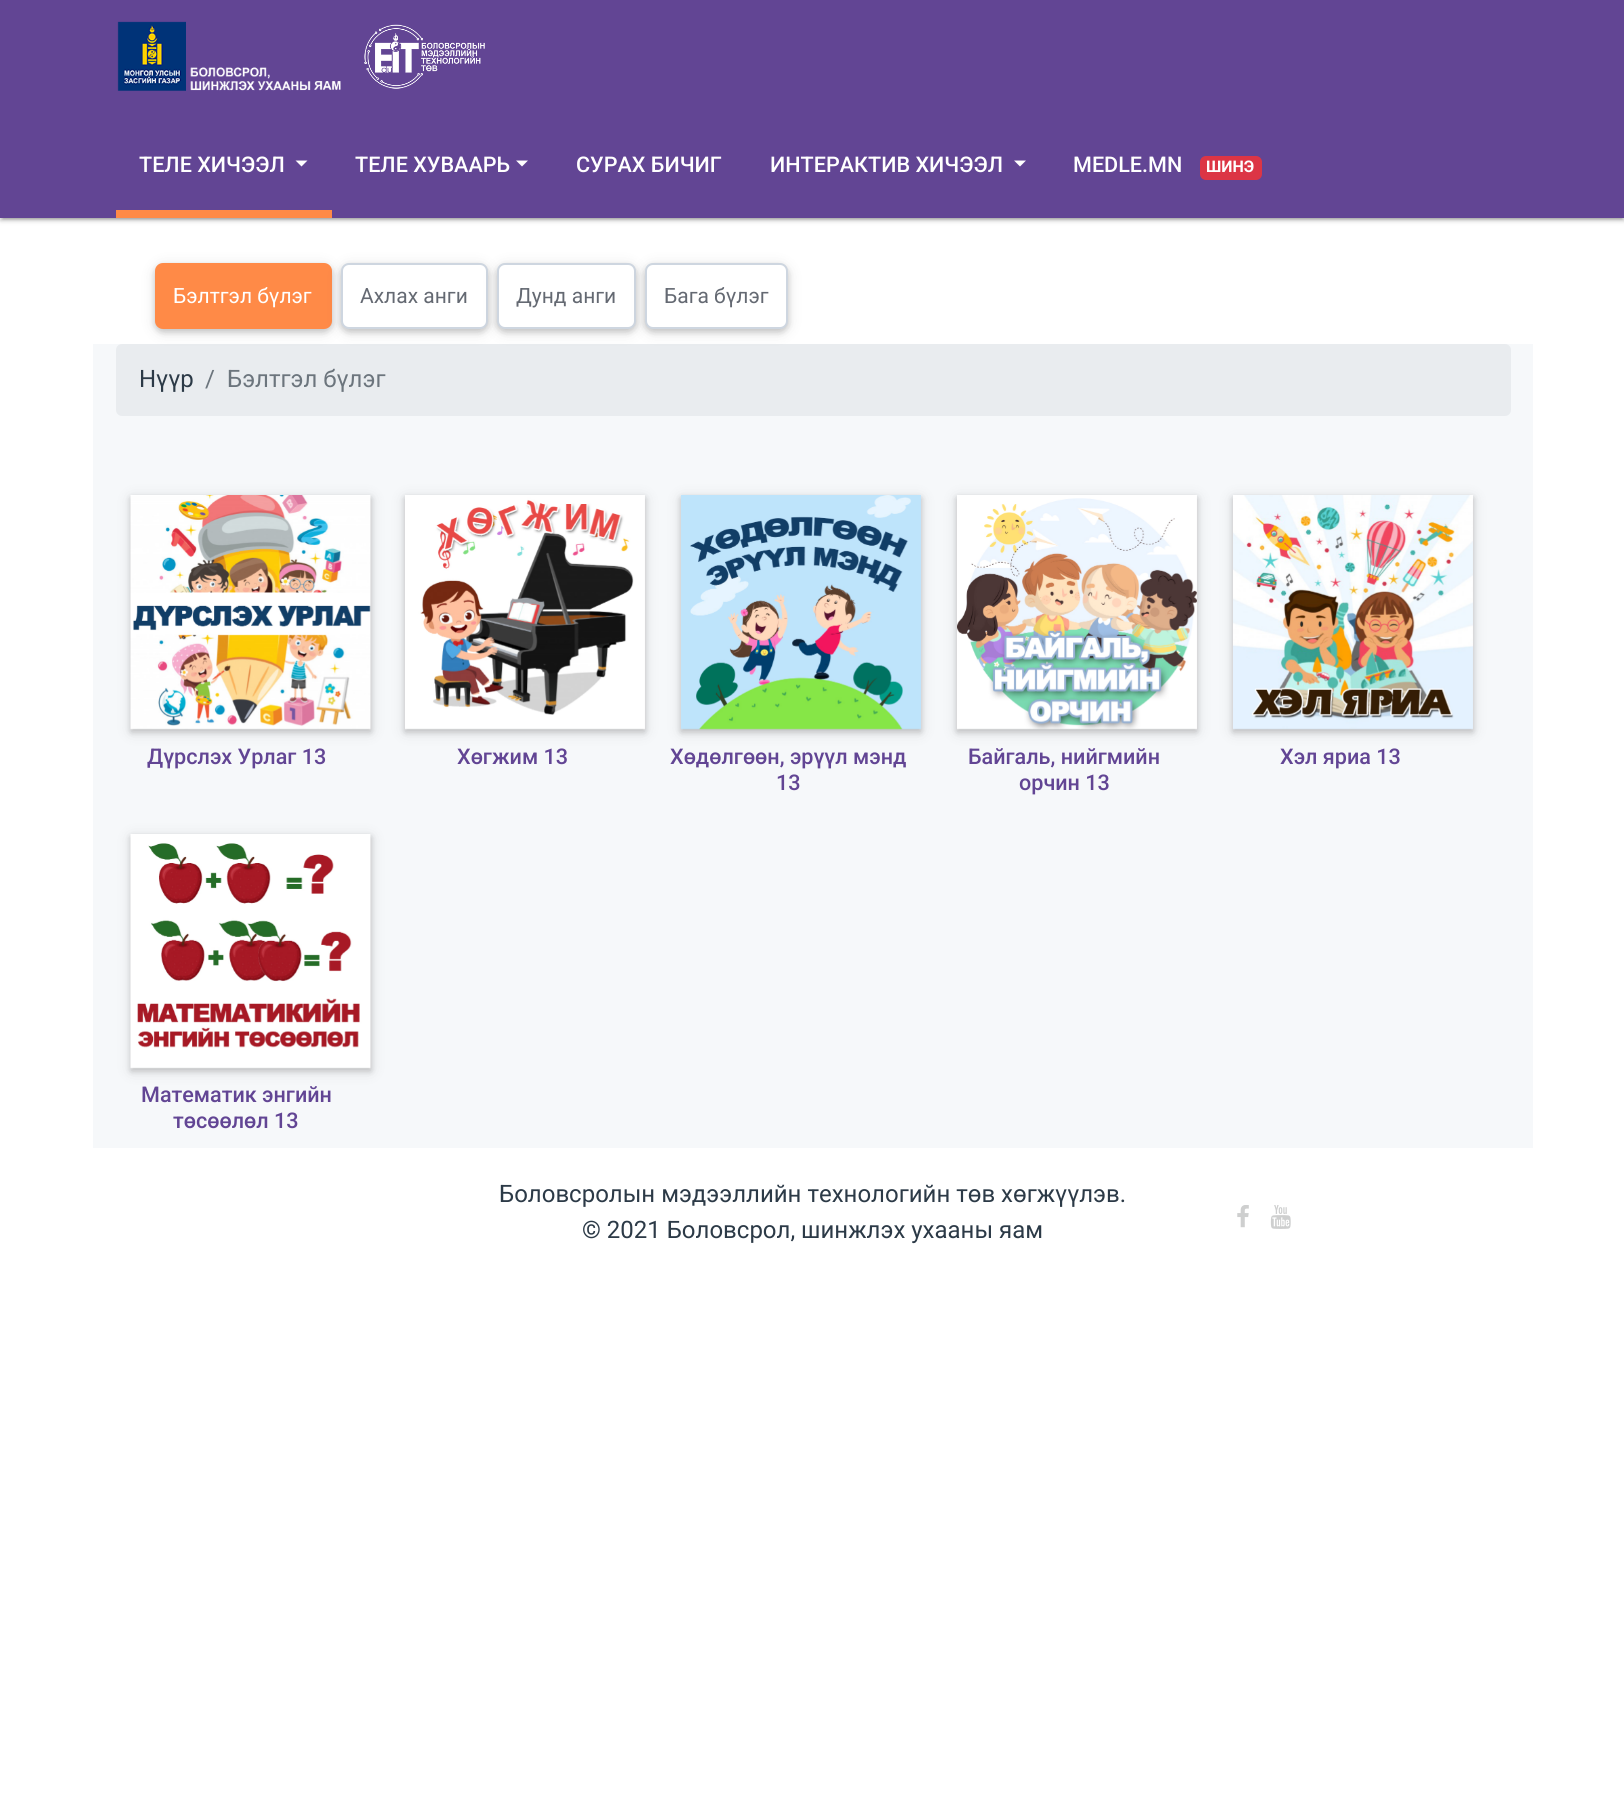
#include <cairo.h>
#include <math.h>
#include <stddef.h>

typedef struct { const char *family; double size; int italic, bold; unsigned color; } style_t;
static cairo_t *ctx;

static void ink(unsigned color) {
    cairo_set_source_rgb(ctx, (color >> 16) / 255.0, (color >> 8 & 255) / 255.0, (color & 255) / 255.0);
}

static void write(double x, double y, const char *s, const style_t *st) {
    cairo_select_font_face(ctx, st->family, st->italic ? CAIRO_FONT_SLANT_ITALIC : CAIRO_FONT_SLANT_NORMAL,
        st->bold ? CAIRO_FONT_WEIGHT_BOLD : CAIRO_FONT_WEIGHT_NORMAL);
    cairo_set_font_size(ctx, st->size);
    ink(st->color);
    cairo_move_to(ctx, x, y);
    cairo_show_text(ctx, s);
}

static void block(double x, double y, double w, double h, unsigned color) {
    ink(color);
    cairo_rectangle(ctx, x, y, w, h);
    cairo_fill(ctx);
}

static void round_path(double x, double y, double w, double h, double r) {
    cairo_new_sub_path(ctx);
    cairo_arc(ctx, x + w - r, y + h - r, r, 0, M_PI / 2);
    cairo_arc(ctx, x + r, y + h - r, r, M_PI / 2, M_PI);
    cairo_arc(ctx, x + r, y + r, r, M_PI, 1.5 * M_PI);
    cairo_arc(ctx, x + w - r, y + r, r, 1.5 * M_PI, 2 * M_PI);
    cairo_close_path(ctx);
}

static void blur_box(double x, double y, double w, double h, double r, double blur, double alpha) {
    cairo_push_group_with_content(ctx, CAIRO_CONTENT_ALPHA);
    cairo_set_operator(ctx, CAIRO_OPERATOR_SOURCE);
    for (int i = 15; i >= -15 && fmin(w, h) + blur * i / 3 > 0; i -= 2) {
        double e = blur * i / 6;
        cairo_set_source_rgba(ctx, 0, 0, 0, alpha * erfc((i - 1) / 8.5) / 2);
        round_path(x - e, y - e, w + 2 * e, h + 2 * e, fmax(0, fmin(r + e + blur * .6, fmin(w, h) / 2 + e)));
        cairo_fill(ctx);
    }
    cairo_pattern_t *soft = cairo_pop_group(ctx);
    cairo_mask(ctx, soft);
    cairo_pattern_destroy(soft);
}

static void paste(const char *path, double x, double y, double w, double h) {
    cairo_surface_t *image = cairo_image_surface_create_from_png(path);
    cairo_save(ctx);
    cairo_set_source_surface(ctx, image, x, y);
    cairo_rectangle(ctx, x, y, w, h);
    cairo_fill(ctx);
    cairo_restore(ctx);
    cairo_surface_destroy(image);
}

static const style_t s1 = {"Roboto Medium", 21.6, 0, 0, 0xffffff};
static const style_t s2 = {"Roboto", 16, 0, 1, 0xffffff};
static const style_t s3 = {"Roboto", 21, 0, 0, 0xffffff};
static const style_t s4 = {"Roboto", 21, 0, 0, 0x646972};
static const style_t s5 = {"Roboto", 24, 0, 0, 0x2c3a47};
static const style_t s6 = {"Roboto", 24, 0, 0, 0x6c757d};
static const style_t s7 = {"Roboto Medium", 21.6, 0, 0, 0x624594};

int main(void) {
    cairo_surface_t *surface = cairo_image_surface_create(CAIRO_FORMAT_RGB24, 1624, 1819);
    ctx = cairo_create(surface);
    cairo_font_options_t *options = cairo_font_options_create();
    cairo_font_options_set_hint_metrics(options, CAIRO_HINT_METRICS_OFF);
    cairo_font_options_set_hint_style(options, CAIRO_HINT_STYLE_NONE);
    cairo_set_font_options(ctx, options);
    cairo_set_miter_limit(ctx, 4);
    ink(0xffffff);
    cairo_paint(ctx);
    ink(0x000000);
    blur_box(0, 2, 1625, 217, 0, 4, 0.12);
    blur_box(3, 8, 1619, 211, 0, 1, 0.2);
    blur_box(0, 3, 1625, 218, 0, 1.5, 0.14);
    block(0, 0, 1624, 218, 0x624594);
    paste("pic1.png", 117, 21, 224, 70);
    paste("pic2.png", 364, 24, 121, 65);
    block(116, 210, 216, 8, 0xff8a47);
    write(139, 172, "ТЕЛЕ ХИЧЭЭЛ", &s1);
    cairo_new_path(ctx);
    cairo_move_to(ctx, 295.5, 160.5);
    cairo_line_to(ctx, 307.5, 160.5);
    cairo_line_to(ctx, 301.5, 166.5);
    cairo_close_path(ctx);
    cairo_fill(ctx);
    write(355, 172, "ТЕЛЕ ХУВААРЬ", &s1);
    cairo_new_path(ctx);
    cairo_move_to(ctx, 516, 160.5);
    cairo_line_to(ctx, 528, 160.5);
    cairo_line_to(ctx, 522, 166.5);
    cairo_close_path(ctx);
    cairo_fill(ctx);
    write(576, 172, "СУРАХ БИЧИГ", &s1);
    write(770, 172, "ИНТЕРАКТИВ ХИЧЭЭЛ", &s1);
    cairo_new_path(ctx);
    cairo_move_to(ctx, 1014, 160.5);
    cairo_line_to(ctx, 1026, 160.5);
    cairo_line_to(ctx, 1020, 166.5);
    cairo_close_path(ctx);
    cairo_fill(ctx);
    write(1073, 172, "MEDLE.MN", &s1);
    ink(0xdc3545);
    round_path(1200, 156, 62, 24, 6);
    cairo_fill(ctx);
    write(1206, 172, "ШИНЭ", &s2);
    block(93, 344, 1440, 804, 0xf6f8fa);
    ink(0xe9ecef);
    round_path(116, 344, 1395, 72, 6);
    cairo_fill(ctx);
    ink(0x000000);
    blur_box(155, 266, 177, 66, 8, 7.5, 0.12);
    blur_box(155, 266, 177, 66, 8, 3, 0.16);
    ink(0xff8a47);
    round_path(155, 263, 177, 66, 8);
    cairo_fill(ctx);
    write(173, 303, "Бэлтгэл бүлэг", &s3);
    ink(0x000000);
    blur_box(341, 266, 147, 66, 8, 7.5, 0.12);
    blur_box(341, 266, 147, 66, 8, 3, 0.16);
    ink(0xffffff);
    round_path(342, 264, 145, 64, 7);
    cairo_fill_preserve(ctx);
    ink(0xced6e0);
    cairo_stroke(ctx);
    write(360, 303, "Ахлах анги", &s4);
    ink(0x000000);
    blur_box(497, 266, 139, 66, 8, 7.5, 0.12);
    blur_box(497, 266, 139, 66, 8, 3, 0.16);
    ink(0xffffff);
    round_path(498, 264, 137, 64, 7);
    cairo_fill_preserve(ctx);
    ink(0xced6e0);
    cairo_stroke(ctx);
    write(516, 303, "Дунд анги", &s4);
    ink(0x000000);
    blur_box(645, 266, 143, 66, 8, 7.5, 0.12);
    blur_box(645, 266, 143, 66, 8, 3, 0.16);
    ink(0xffffff);
    round_path(646, 264, 141, 64, 7);
    cairo_fill_preserve(ctx);
    ink(0xced6e0);
    cairo_stroke(ctx);
    write(664, 303, "Бага бүлэг", &s4);
    write(139, 387, "Нүүр", &s5);
    write(205, 387, "/", &s6);
    write(227, 387, "Бэлтгэл бүлэг", &s6);
    ink(0x000000);
    blur_box(131, 498, 240, 234, 0, 7.5, 0.12);
    blur_box(131, 498, 240, 234, 0, 3, 0.16);
    paste("pic3.png", 130, 495, 241, 235);
    write(147, 764, "Дүрслэх Урлаг 13", &s7);
    ink(0x000000);
    blur_box(405, 498, 240, 234, 0, 7.5, 0.12);
    blur_box(405, 498, 240, 234, 0, 3, 0.16);
    paste("pic4.png", 405, 495, 240, 235);
    write(457, 764, "Хөгжим 13", &s7);
    ink(0x000000);
    blur_box(681, 498, 240, 234, 0, 7.5, 0.12);
    blur_box(681, 498, 240, 234, 0, 3, 0.16);
    paste("pic5.png", 681, 495, 240, 235);
    write(670, 764, "Хөдөлгөөн, эрүүл мэнд", &s7);
    write(776, 790, "13", &s7);
    ink(0x000000);
    blur_box(957, 498, 240, 234, 0, 7.5, 0.12);
    blur_box(957, 498, 240, 234, 0, 3, 0.16);
    paste("pic6.png", 957, 495, 240, 235);
    write(968, 764, "Байгаль, нийгмийн", &s7);
    write(1019, 790, "орчин 13", &s7);
    ink(0x000000);
    blur_box(1233, 498, 240, 234, 0, 7.5, 0.12);
    blur_box(1233, 498, 240, 234, 0, 3, 0.16);
    paste("pic7.png", 1233, 495, 240, 235);
    write(1280, 764, "Хэл яриа 13", &s7);
    ink(0x000000);
    blur_box(131, 837, 240, 234, 0, 7.5, 0.12);
    blur_box(131, 837, 240, 234, 0, 3, 0.16);
    paste("pic8.png", 130, 834, 241, 235);
    write(141, 1102, "Математик энгийн", &s7);
    write(173, 1128, "төсөөлөл 13", &s7);
    write(499, 1202, "Боловсролын мэдээллийн технологийн төв хөгжүүлэв.", &s5);
    write(582, 1238, "© 2021 Боловсрол, шинжлэх ухааны яам", &s5);
    paste("pic9.png", 1237, 1205, 12, 23);
    paste("pic10.png", 1270, 1205, 21, 24);
    cairo_surface_write_to_png(surface, "screenshot.png");
    cairo_font_options_destroy(options);
    cairo_destroy(ctx);
    cairo_surface_destroy(surface);
    return 0;
}
